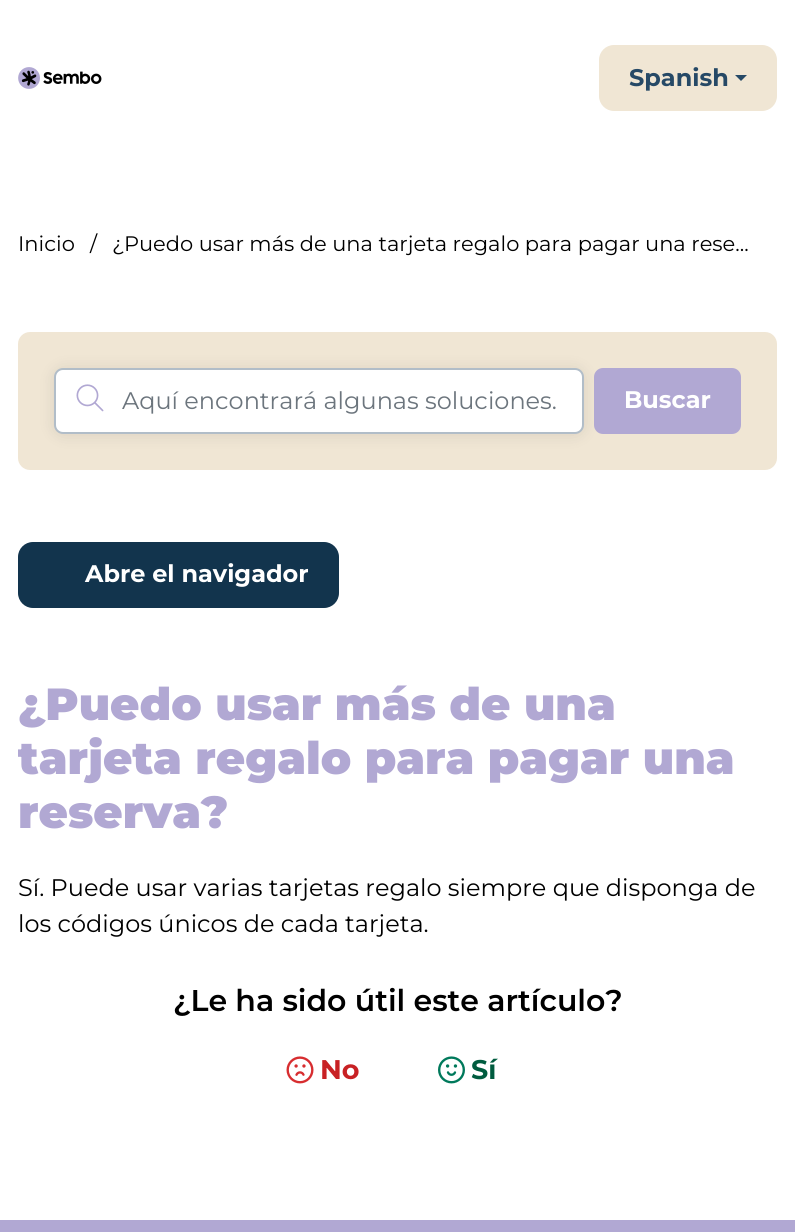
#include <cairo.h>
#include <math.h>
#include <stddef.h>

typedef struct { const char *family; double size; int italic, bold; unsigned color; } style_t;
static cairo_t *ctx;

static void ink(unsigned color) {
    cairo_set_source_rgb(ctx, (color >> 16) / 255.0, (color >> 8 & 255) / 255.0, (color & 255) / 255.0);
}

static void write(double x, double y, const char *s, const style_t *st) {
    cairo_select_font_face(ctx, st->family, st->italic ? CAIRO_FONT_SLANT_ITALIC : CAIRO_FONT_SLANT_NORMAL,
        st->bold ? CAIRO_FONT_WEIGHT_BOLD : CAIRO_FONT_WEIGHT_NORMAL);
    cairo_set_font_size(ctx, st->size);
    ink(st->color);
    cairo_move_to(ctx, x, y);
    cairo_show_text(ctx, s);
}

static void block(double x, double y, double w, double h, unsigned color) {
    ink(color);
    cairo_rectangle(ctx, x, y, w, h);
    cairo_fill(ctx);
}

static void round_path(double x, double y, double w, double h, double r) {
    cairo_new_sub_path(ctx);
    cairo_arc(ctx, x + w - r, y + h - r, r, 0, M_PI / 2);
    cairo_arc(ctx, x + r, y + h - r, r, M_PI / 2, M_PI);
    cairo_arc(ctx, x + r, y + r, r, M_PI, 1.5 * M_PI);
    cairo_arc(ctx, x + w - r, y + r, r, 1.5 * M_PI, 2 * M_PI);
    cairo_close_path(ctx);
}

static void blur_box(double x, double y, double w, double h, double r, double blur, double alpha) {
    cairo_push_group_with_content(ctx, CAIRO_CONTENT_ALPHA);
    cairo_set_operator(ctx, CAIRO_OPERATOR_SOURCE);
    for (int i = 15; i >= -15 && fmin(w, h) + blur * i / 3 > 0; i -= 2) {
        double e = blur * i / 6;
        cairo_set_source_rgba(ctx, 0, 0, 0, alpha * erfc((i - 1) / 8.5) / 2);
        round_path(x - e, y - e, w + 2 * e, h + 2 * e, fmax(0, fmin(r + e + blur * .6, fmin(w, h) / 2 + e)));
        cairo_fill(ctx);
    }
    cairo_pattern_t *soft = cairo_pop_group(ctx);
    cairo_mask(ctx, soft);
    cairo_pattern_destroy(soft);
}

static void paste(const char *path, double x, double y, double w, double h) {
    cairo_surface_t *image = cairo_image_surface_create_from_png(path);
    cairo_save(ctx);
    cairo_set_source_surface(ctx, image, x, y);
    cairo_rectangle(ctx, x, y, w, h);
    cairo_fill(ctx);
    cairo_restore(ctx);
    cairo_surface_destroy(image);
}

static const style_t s1 = {"Montserrat Thin", 24, 0, 0, 0x264966};
static const style_t s2 = {"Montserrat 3 Thin", 21, 0, 0, 0x000000};
static const style_t s3 = {"Montserrat 3 Thin", 24, 0, 0, 0x6c757d};
static const style_t s4 = {"Montserrat Thin", 24, 0, 0, 0xffffff};
static const style_t s5 = {"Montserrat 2 Thin", 45, 0, 0, 0xb1a8d3};
static const style_t s6 = {"Montserrat 3 Thin", 24, 0, 0, 0x000000};
static const style_t s7 = {"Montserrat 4 Thin", 30, 0, 0, 0x000000};
static const style_t s8 = {"Montserrat Thin", 27, 0, 0, 0xc82124};
static const style_t s9 = {"Montserrat Thin", 27, 0, 0, 0x005c3f};

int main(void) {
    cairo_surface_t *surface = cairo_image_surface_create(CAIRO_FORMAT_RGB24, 795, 1232);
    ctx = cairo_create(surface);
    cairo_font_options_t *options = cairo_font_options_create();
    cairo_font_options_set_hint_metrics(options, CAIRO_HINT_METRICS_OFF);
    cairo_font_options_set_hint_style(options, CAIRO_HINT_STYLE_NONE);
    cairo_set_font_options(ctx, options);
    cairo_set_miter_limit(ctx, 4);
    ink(0xffffff);
    cairo_paint(ctx);
    paste("pic1.png", 18, 67, 84, 22);
    ink(0xf0e6d4);
    round_path(599, 45, 178, 66, 15);
    cairo_fill(ctx);
    write(629, 86, "Spanish", &s1);
    cairo_new_path(ctx);
    cairo_move_to(ctx, 735, 75);
    cairo_line_to(ctx, 747, 75);
    cairo_line_to(ctx, 741, 81);
    cairo_close_path(ctx);
    cairo_fill(ctx);
    write(18, 251, "Inicio", &s2);
    write(90, 251, "/", &s2);
    write(112, 251, "¿Puedo usar más de una tarjeta regalo para pagar una rese...", &s2);
    ink(0xf0e6d4);
    round_path(18, 332, 759, 138, 12);
    cairo_fill(ctx);
    ink(0x000000);
    blur_box(54, 369, 530, 66, 9, 7.5, 0.1);
    ink(0xffffff);
    round_path(55, 369, 528, 64, 8);
    cairo_fill_preserve(ctx);
    ink(0xb1bdc8);
    cairo_stroke(ctx);
    paste("pic2.png", 76, 384, 28, 28);
    write(122, 409, "Aquí encontrará algunas soluciones.", &s3);
    ink(0xb1a8d3);
    round_path(594, 368, 147, 66, 9);
    cairo_fill(ctx);
    write(624, 408, "Buscar", &s4);
    ink(0x12344d);
    round_path(18, 542, 321, 66, 15);
    cairo_fill(ctx);
    write(85, 582, "Abre el navigador", &s4);
    write(18, 720, "¿Puedo usar más de una", &s5);
    write(18, 774, "tarjeta regalo para pagar una", &s5);
    write(18, 828, "reserva?", &s5);
    write(18, 896, "Sí. Puede usar varias tarjetas regalo siempre que disponga de", &s6);
    write(18, 932, "los códigos únicos de cada tarjeta.", &s6);
    write(173, 1011, "¿Le ha sido útil este artículo?", &s7);
    paste("pic3.png", 286, 1056, 28, 28);
    write(320, 1079, "No", &s8);
    paste("pic4.png", 438, 1056, 27, 28);
    write(471, 1079, "Sí", &s9);
    block(0, 1220, 795, 12, 0xb1a8d3);
    cairo_surface_write_to_png(surface, "screenshot.png");
    cairo_font_options_destroy(options);
    cairo_destroy(ctx);
    cairo_surface_destroy(surface);
    return 0;
}
